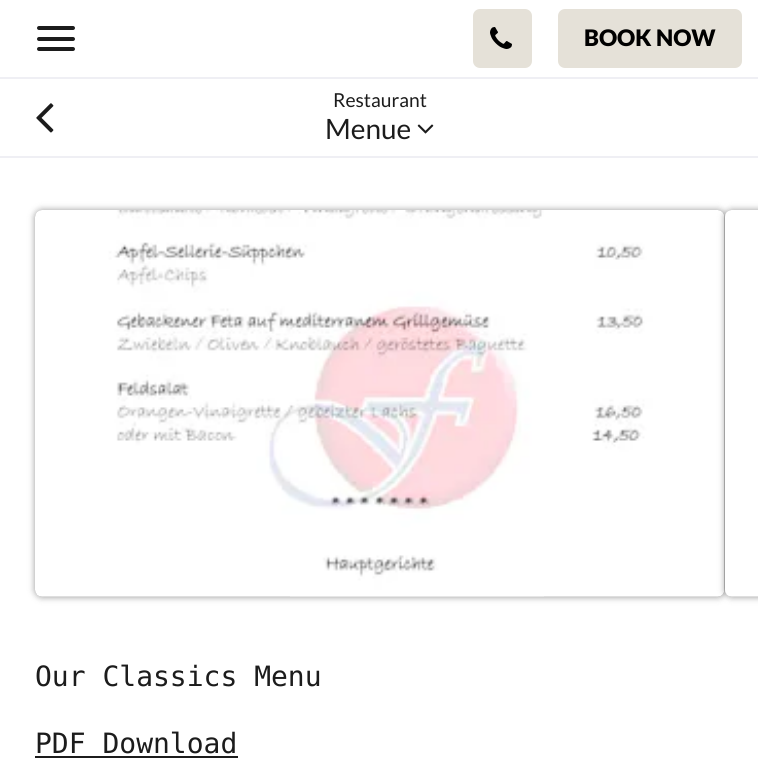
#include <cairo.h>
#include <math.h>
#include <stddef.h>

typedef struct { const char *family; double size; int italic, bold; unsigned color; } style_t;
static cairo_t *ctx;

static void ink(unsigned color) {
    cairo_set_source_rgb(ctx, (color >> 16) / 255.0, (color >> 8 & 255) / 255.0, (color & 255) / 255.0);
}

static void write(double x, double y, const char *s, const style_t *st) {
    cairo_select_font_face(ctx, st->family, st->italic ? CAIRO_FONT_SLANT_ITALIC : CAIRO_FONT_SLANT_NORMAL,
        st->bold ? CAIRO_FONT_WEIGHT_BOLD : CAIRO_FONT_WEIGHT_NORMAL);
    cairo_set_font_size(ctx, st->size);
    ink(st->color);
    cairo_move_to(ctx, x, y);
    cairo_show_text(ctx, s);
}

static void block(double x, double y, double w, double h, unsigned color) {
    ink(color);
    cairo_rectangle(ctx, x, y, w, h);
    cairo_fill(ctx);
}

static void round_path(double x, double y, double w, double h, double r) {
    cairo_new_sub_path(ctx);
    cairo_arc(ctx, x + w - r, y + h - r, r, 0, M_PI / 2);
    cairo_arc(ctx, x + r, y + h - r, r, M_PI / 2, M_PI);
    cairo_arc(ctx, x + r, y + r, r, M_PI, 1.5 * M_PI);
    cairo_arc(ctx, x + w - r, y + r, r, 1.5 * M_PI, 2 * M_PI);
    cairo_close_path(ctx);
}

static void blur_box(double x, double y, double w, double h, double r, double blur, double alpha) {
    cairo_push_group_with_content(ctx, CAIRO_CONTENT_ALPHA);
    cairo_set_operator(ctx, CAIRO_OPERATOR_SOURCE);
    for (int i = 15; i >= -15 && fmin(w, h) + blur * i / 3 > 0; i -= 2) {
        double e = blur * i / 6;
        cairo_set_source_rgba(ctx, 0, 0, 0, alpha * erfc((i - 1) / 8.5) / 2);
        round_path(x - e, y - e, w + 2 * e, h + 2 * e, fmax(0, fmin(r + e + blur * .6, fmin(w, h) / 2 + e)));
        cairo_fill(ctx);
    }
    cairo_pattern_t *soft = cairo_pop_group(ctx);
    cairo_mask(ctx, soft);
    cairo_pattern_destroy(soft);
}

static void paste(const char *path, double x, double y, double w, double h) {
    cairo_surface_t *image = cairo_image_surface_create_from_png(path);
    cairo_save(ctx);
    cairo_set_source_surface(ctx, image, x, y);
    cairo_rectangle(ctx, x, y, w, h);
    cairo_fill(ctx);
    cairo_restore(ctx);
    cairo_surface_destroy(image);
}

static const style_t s1 = {"Lato Black", 22.75, 0, 0, 0x000000};
static const style_t s2 = {"Lato", 19.25, 0, 0, 0x1c1c1c};
static const style_t s3 = {"Lato", 28, 0, 0, 0x1c1c1c};
static const style_t s4 = {"DejaVu Sans Mono", 28, 0, 0, 0x1c1c1c};

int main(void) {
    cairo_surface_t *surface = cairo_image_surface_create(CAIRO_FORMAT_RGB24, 758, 781);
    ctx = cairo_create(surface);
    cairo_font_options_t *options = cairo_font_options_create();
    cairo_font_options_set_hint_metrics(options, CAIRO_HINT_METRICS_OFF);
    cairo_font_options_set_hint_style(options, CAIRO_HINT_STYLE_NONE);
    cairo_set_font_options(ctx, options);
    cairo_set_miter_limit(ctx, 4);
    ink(0xefeff4);
    cairo_paint(ctx);
    block(0, 0, 758, 77, 0xffffff);
    ink(0x1c1c1c);
    round_path(37, 26, 38, 4, 2);
    cairo_fill(ctx);
    round_path(37, 37, 38, 4, 2);
    cairo_fill(ctx);
    round_path(37, 47, 38, 4, 2);
    cairo_fill(ctx);
    ink(0xe5e1d8);
    round_path(473, 9, 59, 59, 7);
    cairo_fill(ctx);
    paste("pic1.png", 490, 27, 22, 22);
    round_path(558, 9, 184, 59, 7);
    cairo_fill(ctx);
    write(584, 46, "BOOK NOW", &s1);
    block(0, 79, 758, 77, 0xffffff);
    paste("pic2.png", 36, 103, 18, 30);
    write(333, 107, "Restaurant", &s2);
    write(325, 139, "Menue", &s3);
    paste("pic3.png", 417, 124, 17, 10);
    block(0, 158, 758, 623, 0xffffff);
    ink(0x000000);
    blur_box(35, 210, 690, 387, 7, 3.5, 0.4);
    paste("pic4.png", 35, 210, 689, 387);
    blur_box(725, 210, 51, 387, 7, 3.5, 0.4);
    paste("pic5.png", 725, 210, 33, 387);
    write(35, 686, "Our Classics Menu", &s4);
    write(35, 753, "PDF Download", &s4);
    block(35, 756, 203, 2, 0x1c1c1c);
    cairo_surface_write_to_png(surface, "screenshot.png");
    cairo_font_options_destroy(options);
    cairo_destroy(ctx);
    cairo_surface_destroy(surface);
    return 0;
}
